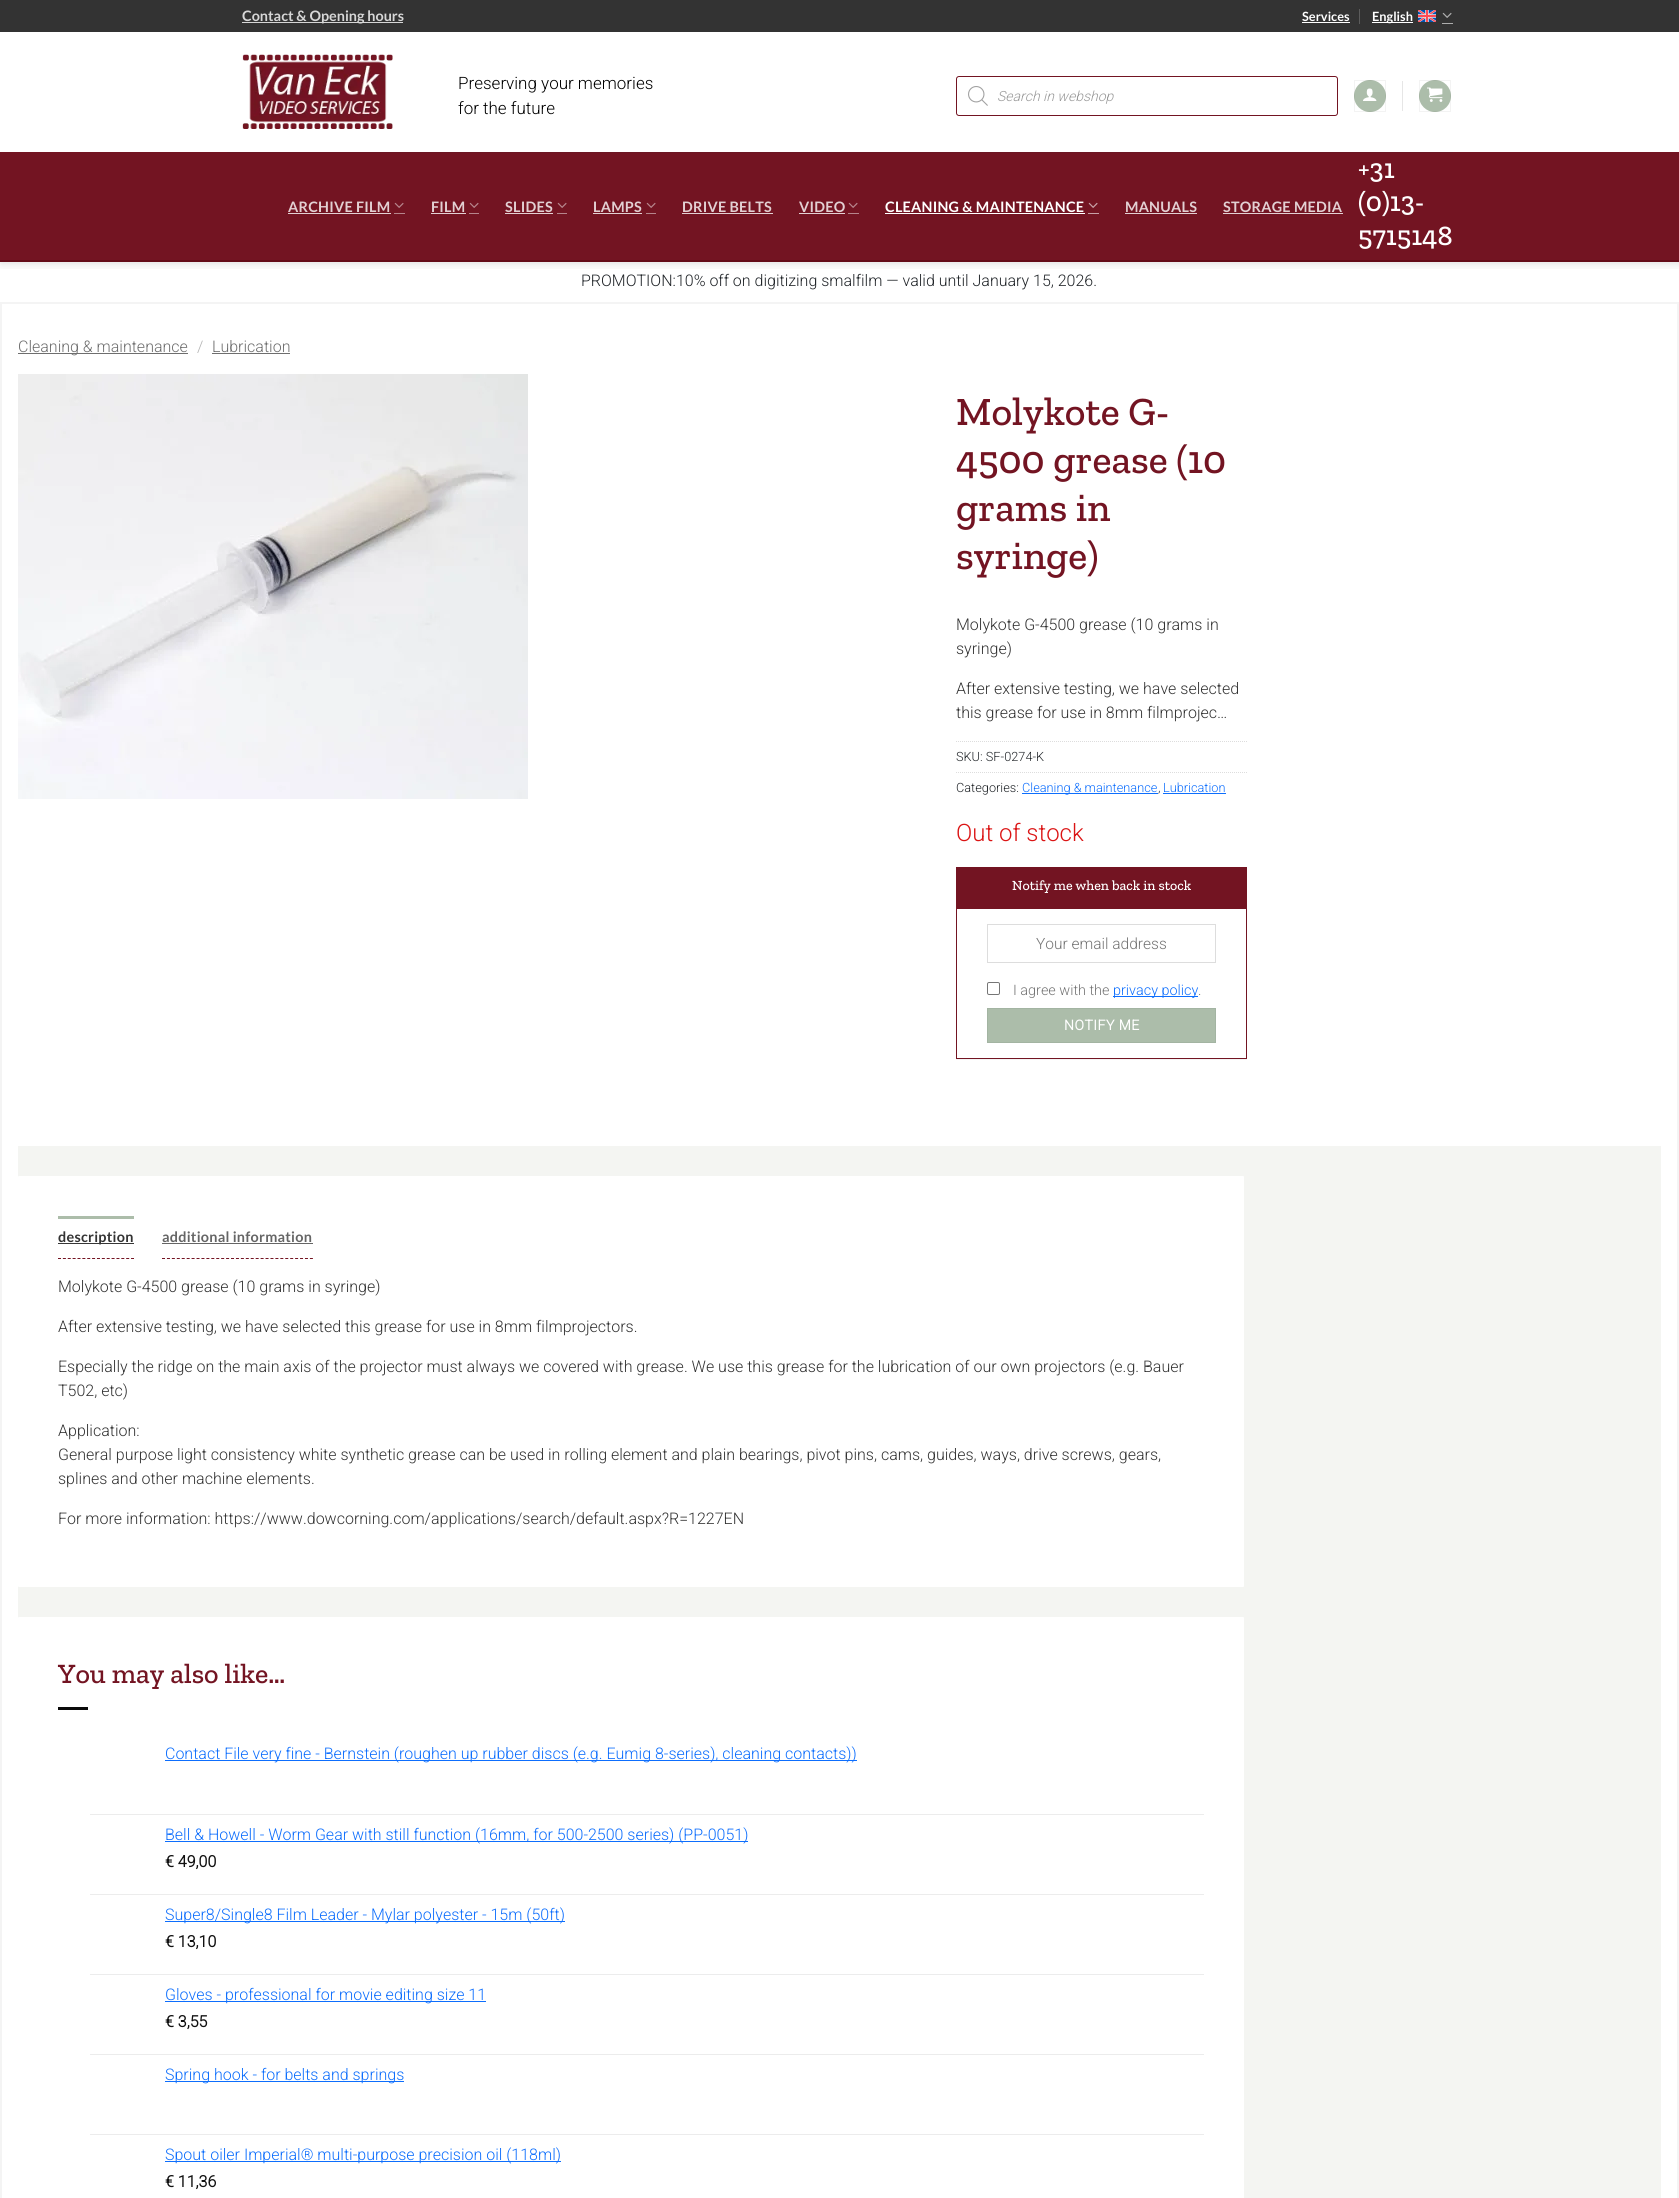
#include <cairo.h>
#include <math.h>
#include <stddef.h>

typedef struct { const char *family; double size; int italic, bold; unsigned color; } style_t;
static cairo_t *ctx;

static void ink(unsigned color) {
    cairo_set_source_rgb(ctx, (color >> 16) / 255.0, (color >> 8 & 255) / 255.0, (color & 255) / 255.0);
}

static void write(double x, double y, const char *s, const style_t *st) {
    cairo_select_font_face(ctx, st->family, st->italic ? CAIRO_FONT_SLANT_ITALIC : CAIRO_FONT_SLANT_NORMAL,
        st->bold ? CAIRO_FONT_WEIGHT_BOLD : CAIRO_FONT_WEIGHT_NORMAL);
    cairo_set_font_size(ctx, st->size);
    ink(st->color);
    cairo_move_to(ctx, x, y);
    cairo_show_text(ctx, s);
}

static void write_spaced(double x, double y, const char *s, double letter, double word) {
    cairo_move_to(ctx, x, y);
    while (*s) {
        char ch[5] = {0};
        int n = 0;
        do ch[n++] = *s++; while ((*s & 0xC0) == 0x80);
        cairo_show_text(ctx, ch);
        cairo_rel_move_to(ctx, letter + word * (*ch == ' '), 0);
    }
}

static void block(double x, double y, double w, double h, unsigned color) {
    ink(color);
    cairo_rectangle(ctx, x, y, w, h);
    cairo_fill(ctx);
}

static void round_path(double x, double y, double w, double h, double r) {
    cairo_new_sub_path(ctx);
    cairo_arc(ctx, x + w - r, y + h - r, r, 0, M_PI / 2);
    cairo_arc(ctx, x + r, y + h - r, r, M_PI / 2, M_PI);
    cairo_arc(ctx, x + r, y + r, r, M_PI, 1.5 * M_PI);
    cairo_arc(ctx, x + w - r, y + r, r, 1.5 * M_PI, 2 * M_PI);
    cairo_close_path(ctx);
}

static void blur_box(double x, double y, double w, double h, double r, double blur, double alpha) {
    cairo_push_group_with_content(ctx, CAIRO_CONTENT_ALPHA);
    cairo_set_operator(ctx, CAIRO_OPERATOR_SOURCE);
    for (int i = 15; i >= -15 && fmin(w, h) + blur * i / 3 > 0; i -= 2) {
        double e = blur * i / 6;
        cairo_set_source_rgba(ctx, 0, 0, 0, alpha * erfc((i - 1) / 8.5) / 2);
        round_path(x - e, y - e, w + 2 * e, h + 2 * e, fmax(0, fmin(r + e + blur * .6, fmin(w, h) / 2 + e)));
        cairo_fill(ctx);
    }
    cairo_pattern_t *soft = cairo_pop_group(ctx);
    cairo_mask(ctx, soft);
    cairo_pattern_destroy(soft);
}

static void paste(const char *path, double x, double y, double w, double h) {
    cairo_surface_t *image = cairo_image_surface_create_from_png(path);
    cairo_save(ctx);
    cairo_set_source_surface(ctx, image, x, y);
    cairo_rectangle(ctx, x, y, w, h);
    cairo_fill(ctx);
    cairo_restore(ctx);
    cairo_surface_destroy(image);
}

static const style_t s1 = {"Lato", 14.4, 0, 1, 0xd7d7d7};
static const style_t s2 = {"Lato", 12.75, 0, 1, 0xffffff};
static const style_t s3 = {"Roboto Light", 17, 0, 0, 0x000000};
static const style_t s4 = {"Roboto Light", 14, 1, 0, 0x999999};
static const style_t s5 = {"Zilla Slab Medium", 28, 0, 0, 0xffffff};
static const style_t s6 = {"Roboto Light", 16, 0, 0, 0x212529};
static const style_t s7 = {"Roboto Light", 16, 0, 0, 0x6e6e6e};
static const style_t s8 = {"Roboto Light", 16, 0, 0, 0xb2b2b2};
static const style_t s9 = {"Zilla Slab Medium", 40, 0, 0, 0x731422};
static const style_t s10 = {"Roboto Light", 16, 0, 0, 0x333333};
static const style_t s11 = {"Roboto Light", 12.75, 0, 0, 0x212529};
static const style_t s12 = {"Roboto Light", 12.75, 0, 0, 0x0d6efd};
static const style_t s13 = {"Roboto Light", 24, 0, 0, 0xdb1414};
static const style_t s14 = {"Zilla Slab Medium", 14, 0, 0, 0xffffff};
static const style_t s15 = {"Roboto Light", 15.5, 0, 0, 0x757575};
static const style_t s16 = {"Roboto Light", 14.4, 0, 0, 0x757575};
static const style_t s17 = {"Roboto Light", 14.4, 0, 0, 0x0d6efd};
static const style_t s18 = {"Zilla Slab Medium", 28, 0, 0, 0x731422};
static const style_t s19 = {"Roboto Light", 16, 0, 0, 0x0d6efd};
static const style_t s20 = {"Roboto", 16, 0, 1, 0x111111};

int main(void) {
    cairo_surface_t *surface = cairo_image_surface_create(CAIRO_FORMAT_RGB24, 1679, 2198);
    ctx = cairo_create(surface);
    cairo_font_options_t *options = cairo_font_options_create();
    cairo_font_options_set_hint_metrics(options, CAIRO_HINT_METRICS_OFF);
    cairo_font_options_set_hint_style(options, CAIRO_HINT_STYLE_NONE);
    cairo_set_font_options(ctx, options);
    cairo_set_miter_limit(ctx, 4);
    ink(0xffffff);
    cairo_paint(ctx);
    cairo_save(ctx);
    cairo_rectangle(ctx, 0, 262, 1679, 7);
    cairo_clip(ctx);
    ink(0x000000);
    blur_box(1, 1, 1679, 262, 0, 5, 0.15);
    cairo_restore(ctx);
    block(0, 0, 1679, 32, 0x333333);
    block(242, 22, 161, 1, 0xd6d6d6);
    write(242, 21, "Contact & Opening hours", &s1);
    write(1302, 21, "Services", &s2);
    block(1302, 22, 48, 1, 0xffffff);
    block(1359, 9, 1, 15, 0x5c5c5c);
    block(1372, 22, 41, 1, 0xffffff);
    write(1372, 21, "English", &s2);
    paste("pic1.png", 1418, 10, 18, 12);
    paste("pic2.png", 1442, 12, 10, 6);
    block(1442, 23, 11, 1, 0xadadad);
    paste("pic3.png", 242, 54, 151, 75);
    write(458, 89, "Preserving your memories", &s3);
    write(458, 114, "for the future", &s3);
    round_path(956.5, 76.5, 381, 39, 2.5);
    ink(0x731422);
    cairo_set_line_width(ctx, 1);
    cairo_stroke(ctx);
    paste("pic4.png", 968, 86, 20, 20);
    write(997, 101, "Search in webshop", &s4);
    ink(0xacbdaa);
    cairo_new_path(ctx);
    cairo_arc(ctx, 1370, 96, 16, 0, 2 * M_PI);
    cairo_fill(ctx);
    cairo_rectangle(ctx, 1354.5, 80.5, 31, 31);
    cairo_set_source_rgba(ctx, 0, 0, 0, 0.05);
    cairo_stroke(ctx);
    paste("pic5.png", 1363, 88, 14, 13);
    block(1402, 81, 1, 30, 0xe6e6e6);
    ink(0xacbdaa);
    cairo_arc(ctx, 1435, 96, 16, 0, 2 * M_PI);
    cairo_fill(ctx);
    cairo_rectangle(ctx, 1419.5, 80.5, 31, 31);
    cairo_set_source_rgba(ctx, 0, 0, 0, 0.05);
    cairo_stroke(ctx);
    paste("pic6.png", 1427, 87, 16, 15);
    block(0, 152, 1679, 108, 0x731422);
    block(227, 152, 1226, 1, 0x6b1623);
    block(0, 260, 1679, 2, 0x640b18);
    cairo_select_font_face(ctx, "Lato", CAIRO_FONT_SLANT_NORMAL, CAIRO_FONT_WEIGHT_BOLD);
    cairo_set_font_size(ctx, 14.4);
    ink(0xe3d0d3);
    write_spaced(288, 212, "ARCHIVE FILM", 0.25, 0);
    block(288, 213, 103, 1, 0xe3d0d3);
    paste("pic7.png", 394, 202, 10, 6);
    block(394, 213, 11, 1, 0xb6858c);
    ink(0xe3d0d3);
    write_spaced(431, 212, "FILM", 0.25, 0);
    block(431, 213, 35, 1, 0xe3d0d3);
    paste("pic7.png", 469, 202, 10, 6);
    block(469, 213, 10, 1, 0xb6858c);
    ink(0xe3d0d3);
    write_spaced(505, 212, "SLIDES", 0.25, 0);
    block(505, 213, 48, 1, 0xe3d0d3);
    paste("pic7.png", 557, 202, 10, 6);
    block(557, 213, 10, 1, 0xb6858c);
    ink(0xe3d0d3);
    write_spaced(593, 212, "LAMPS", 0.25, 0);
    block(593, 213, 49, 1, 0xe3d0d3);
    paste("pic7.png", 646, 202, 10, 6);
    block(646, 213, 10, 1, 0xb6858c);
    ink(0xe3d0d3);
    write_spaced(682, 212, "DRIVE BELTS", 0.25, 0);
    block(682, 213, 91, 1, 0xe3d0d3);
    write_spaced(799, 212, "VIDEO", 0.25, 0);
    block(799, 213, 46, 1, 0xe3d0d3);
    paste("pic7.png", 848, 202, 10, 6);
    block(848, 213, 11, 1, 0xb6858c);
    ink(0xffffff);
    write_spaced(885, 212, "CLEANING & MAINTENANCE", 0.25, 0);
    block(885, 213, 200, 1, 0xffffff);
    paste("pic8.png", 1088, 202, 10, 6);
    block(1088, 213, 11, 1, 0xc7a1a7);
    ink(0xe3d0d3);
    write_spaced(1125, 212, "MANUALS", 0.25, 0);
    block(1125, 213, 72, 1, 0xe3d0d3);
    write_spaced(1223, 212, "STORAGE MEDIA", 0.25, 0);
    block(1223, 213, 120, 1, 0xe3d0d3);
    write(1358, 178, "+31", &s5);
    write(1358, 211, "(0)13-", &s5);
    write(1358, 245, "5715148", &s5);
    write(581, 286, "PROMOTION:10% off on digitizing smalfilm — valid until January 15, 2026.", &s6);
    cairo_rectangle(ctx, 1, 303, 1677, 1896);
    ink(0xf4f4f4);
    cairo_set_line_width(ctx, 2);
    cairo_stroke(ctx);
    block(18, 353, 170, 1, 0x6e6e6e);
    write(18, 352, "Cleaning & maintenance", &s7);
    write(197, 352, "/", &s8);
    write(212, 352, "Lubrication", &s7);
    block(212, 353, 78, 1, 0x6e6e6e);
    paste("pic9.png", 18, 374, 510, 425);
    write(956, 425, "Molykote G-", &s9);
    write(956, 473, "4500 grease (10", &s9);
    write(956, 521, "grams in", &s9);
    write(956, 569, "syringe)", &s9);
    write(956, 630, "Molykote G-4500 grease (10 grams in", &s10);
    write(956, 654, "syringe)", &s10);
    write(956, 694, "After extensive testing, we have selected", &s10);
    write(956, 718, "this grease for use in 8mm filmprojec…", &s10);
    cairo_new_path(ctx);
    cairo_move_to(ctx, 956, 741.5);
    cairo_line_to(ctx, 1247, 741.5);
    ink(0xdddddd);
    cairo_set_line_width(ctx, 1);
    cairo_set_dash(ctx, (double[]){1, 1}, 2, 0);
    cairo_stroke(ctx);
    write(956, 761, "SKU: SF-0274-K", &s11);
    cairo_new_path(ctx);
    cairo_move_to(ctx, 956, 772.5);
    cairo_line_to(ctx, 1247, 772.5);
    ink(0xdddddd);
    cairo_stroke(ctx);
    write(956, 792, "Categories:", &s11);
    block(1022, 793, 136, 1, 0x0d6efd);
    write(1022, 792, "Cleaning & maintenance", &s12);
    write(1158, 792, ",", &s11);
    write(1163, 792, "Lubrication", &s12);
    block(1163, 793, 63, 1, 0x0d6efd);
    write(956, 841, "Out of stock", &s13);
    cairo_save(ctx);
    cairo_rectangle(ctx, 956, 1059, 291, 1);
    cairo_clip(ctx);
    ink(0x000000);
    blur_box(956, 868, 291, 192, 0, 0.5, 0.05);
    cairo_restore(ctx);
    cairo_rectangle(ctx, 956.5, 867.5, 290, 191);
    ink(0x731422);
    cairo_set_dash(ctx, NULL, 0, 0);
    cairo_stroke(ctx);
    block(957, 868, 289, 41, 0x731422);
    write(1012, 890, "Notify me when back in stock", &s14);
    cairo_rectangle(ctx, 987.5, 924.5, 228, 38);
    ink(0xdddddd);
    cairo_stroke(ctx);
    write(1036, 949, "Your email address", &s15);
    round_path(987.5, 982.5, 12, 12, 1.5);
    ink(0x767676);
    cairo_stroke(ctx);
    write(1013, 995, "I agree with the", &s16);
    block(1113, 996, 85, 1, 0x0d6efd);
    write(1113, 995, "privacy policy", &s17);
    write(1198, 995, ".", &s16);
    ink(0xacbdaa);
    cairo_rectangle(ctx, 987.5, 1008.5, 228, 34);
    cairo_fill_preserve(ctx);
    ink(0xa3b4a2);
    cairo_stroke(ctx);
    cairo_select_font_face(ctx, "Roboto", CAIRO_FONT_SLANT_NORMAL, CAIRO_FONT_WEIGHT_BOLD);
    cairo_set_font_size(ctx, 14);
    ink(0xffffff);
    write_spaced(1064, 1030, "NOTIFY ME", 0.5, 0);
    block(18, 1146, 1643, 1052, 0xf4f5f2);
    ink(0xffffff);
    round_path(18, 1176, 1226, 411, 1);
    cairo_fill(ctx);
    cairo_new_path(ctx);
    cairo_move_to(ctx, 58, 1258.5);
    cairo_line_to(ctx, 134, 1258.5);
    ink(0x731422);
    cairo_set_dash(ctx, (double[]){3, 1.87}, 2, 0);
    cairo_stroke(ctx);
    block(58, 1216, 76, 3, 0xacbdaa);
    block(58, 1243, 76, 1, 0x363636);
    cairo_select_font_face(ctx, "Lato", CAIRO_FONT_SLANT_NORMAL, CAIRO_FONT_WEIGHT_BOLD);
    cairo_set_font_size(ctx, 14.4);
    ink(0x333333);
    write_spaced(58, 1242, "description", 0.25, 0);
    cairo_new_path(ctx);
    cairo_move_to(ctx, 162, 1258.5);
    cairo_line_to(ctx, 313, 1258.5);
    ink(0x731422);
    cairo_set_dash(ctx, (double[]){3, 1.93}, 2, 0);
    cairo_stroke(ctx);
    ink(0x656565);
    write_spaced(162, 1242, "additional information", 0.25, 0);
    block(162, 1243, 151, 1, 0x656565);
    write(58, 1292, "Molykote G-4500 grease (10 grams in syringe)", &s10);
    write(58, 1332, "After extensive testing, we have selected this grease for use in 8mm filmprojectors.", &s10);
    write(58, 1372, "Especially the ridge on the main axis of the projector must always we covered with grease. We use this grease for the lubrication of our own projectors (e.g. Bauer", &s10);
    write(58, 1396, "T502, etc)", &s10);
    write(58, 1436, "Application:", &s10);
    write(58, 1460, "General purpose light consistency white synthetic grease can be used in rolling element and plain bearings, pivot pins, cams, guides, ways, drive screws, gears,", &s10);
    write(58, 1484, "splines and other machine elements.", &s10);
    write(58, 1524, "For more information: https://www.dowcorning.com/applications/search/default.aspx?R=1227EN", &s10);
    ink(0xffffff);
    round_path(18, 1617, 1226, 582, 1);
    cairo_fill(ctx);
    write(58, 1683, "You may also like…", &s18);
    block(58, 1707, 30, 3, 0x0a0a0a);
    block(165, 1760, 692, 1, 0x0d6efd);
    write(165, 1759, "Contact File very fine - Bernstein (roughen up rubber discs (e.g. Eumig 8-series), cleaning contacts))", &s19);
    block(90, 1814, 1114, 1, 0xececec);
    block(165, 1841, 583, 1, 0x0d6efd);
    write(165, 1840, "Bell & Howell - Worm Gear with still function (16mm, for 500-2500 series) (PP-0051)", &s19);
    write(165, 1867, "€ 49,00", &s20);
    block(90, 1894, 1114, 1, 0xececec);
    block(165, 1921, 400, 1, 0x0d6efd);
    write(165, 1920, "Super8/Single8 Film Leader - Mylar polyester - 15m (50ft)", &s19);
    write(165, 1947, "€ 13,10", &s20);
    block(90, 1974, 1114, 1, 0xececec);
    block(165, 2001, 321, 1, 0x0d6efd);
    write(165, 2000, "Gloves - professional for movie editing size 11", &s19);
    write(165, 2027, "€ 3,55", &s20);
    block(90, 2054, 1114, 1, 0xececec);
    block(165, 2081, 239, 1, 0x0d6efd);
    write(165, 2080, "Spring hook - for belts and springs", &s19);
    block(90, 2134, 1114, 1, 0xececec);
    block(165, 2161, 396, 1, 0x0d6efd);
    write(165, 2160, "Spout oiler Imperial® multi-purpose precision oil (118ml)", &s19);
    write(165, 2187, "€ 11,36", &s20);
    cairo_surface_write_to_png(surface, "screenshot.png");
    cairo_font_options_destroy(options);
    cairo_destroy(ctx);
    cairo_surface_destroy(surface);
    return 0;
}
